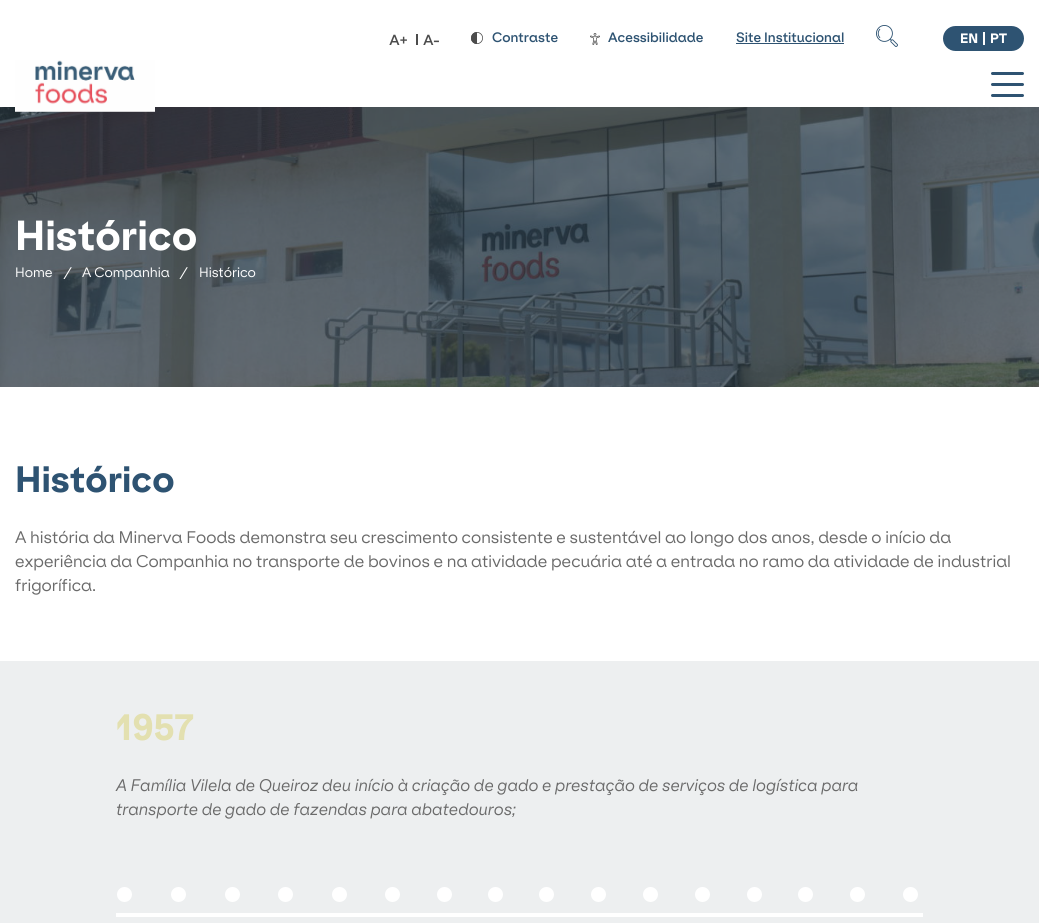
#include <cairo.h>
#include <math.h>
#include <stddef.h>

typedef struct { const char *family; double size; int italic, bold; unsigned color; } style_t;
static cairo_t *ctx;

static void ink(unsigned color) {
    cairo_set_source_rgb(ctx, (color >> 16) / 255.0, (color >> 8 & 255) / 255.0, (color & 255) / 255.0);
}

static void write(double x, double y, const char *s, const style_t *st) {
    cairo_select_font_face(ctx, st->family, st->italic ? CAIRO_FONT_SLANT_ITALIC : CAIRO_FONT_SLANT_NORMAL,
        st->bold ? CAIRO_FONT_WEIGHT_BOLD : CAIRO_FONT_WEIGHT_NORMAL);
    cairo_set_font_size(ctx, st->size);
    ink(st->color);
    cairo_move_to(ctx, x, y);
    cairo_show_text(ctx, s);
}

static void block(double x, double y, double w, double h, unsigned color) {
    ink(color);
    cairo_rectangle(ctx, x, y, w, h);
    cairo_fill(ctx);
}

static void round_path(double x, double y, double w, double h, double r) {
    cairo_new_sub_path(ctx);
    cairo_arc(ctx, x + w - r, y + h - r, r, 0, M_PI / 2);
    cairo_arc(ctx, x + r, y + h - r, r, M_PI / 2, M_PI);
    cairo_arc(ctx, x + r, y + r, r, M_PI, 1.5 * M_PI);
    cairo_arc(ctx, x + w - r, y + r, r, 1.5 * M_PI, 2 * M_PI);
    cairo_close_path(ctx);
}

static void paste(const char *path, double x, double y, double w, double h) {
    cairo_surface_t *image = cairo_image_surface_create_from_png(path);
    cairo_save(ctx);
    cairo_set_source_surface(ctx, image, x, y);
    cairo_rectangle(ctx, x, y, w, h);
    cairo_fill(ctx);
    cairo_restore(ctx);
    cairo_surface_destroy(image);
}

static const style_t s1 = {"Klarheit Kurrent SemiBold", 13, 0, 0, 0x2e5372};
static const style_t s2 = {"Klarheit Kurrent ExtraBold", 13, 0, 0, 0xffffff};
static const style_t s3 = {"Klarheit Kurrent ExtraBold", 40, 0, 0, 0xffffff};
static const style_t s4 = {"Klarheit Kurrent", 13, 0, 0, 0xffffff};
static const style_t s5 = {"Klarheit Kurrent", 16, 0, 0, 0xffffff};
static const style_t s6 = {"Klarheit Kurrent ExtraBold", 35, 0, 0, 0x2e5372};
static const style_t s7 = {"Klarheit Kurrent", 16, 0, 0, 0x6a6a6a};
static const style_t s8 = {"Klarheit Kurrent ExtraBold", 35, 0, 0, 0xe3e0b0};
static const style_t s9 = {"Klarheit Kurrent", 16, 1, 0, 0x6a6a6a};

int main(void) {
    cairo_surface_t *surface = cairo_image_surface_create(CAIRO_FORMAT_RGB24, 1039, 923);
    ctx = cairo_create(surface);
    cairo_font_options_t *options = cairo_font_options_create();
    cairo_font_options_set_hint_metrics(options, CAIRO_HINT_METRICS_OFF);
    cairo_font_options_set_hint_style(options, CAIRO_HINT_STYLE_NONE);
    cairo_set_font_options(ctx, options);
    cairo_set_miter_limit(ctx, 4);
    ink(0xffffff);
    cairo_paint(ctx);
    paste("pic1.png", 389, 34, 18, 11);
    block(416, 34, 2, 11, 0x4c4c4c);
    paste("pic2.png", 423, 34, 16, 11);
    paste("pic3.png", 471, 32, 12, 12);
    write(492, 42, "Contraste", &s1);
    paste("pic4.png", 590, 33, 10, 12);
    write(608, 42, "Acessibilidade", &s1);
    write(736, 42, "Site Institucional", &s1);
    block(736, 43, 108, 1, 0x2e5372);
    paste("pic5.png", 876, 25, 22, 22);
    round_path(943, 26, 81, 25, 12.5);
    cairo_fill(ctx);
    write(960, 43, "EN", &s2);
    block(983, 32, 2, 13, 0xffffff);
    write(990, 43, "PT", &s2);
    paste("pic7.png", 0, 107, 1039, 280);
    paste("pic6.png", 15, 60, 140, 52);
    ink(0x2e5372);
    round_path(991, 72, 33, 3, 1.5);
    cairo_fill(ctx);
    round_path(991, 83, 33, 3, 1.5);
    cairo_fill(ctx);
    round_path(991, 94, 33, 3, 1.5);
    cairo_fill(ctx);
    write(15, 250, "Histórico", &s3);
    write(15, 277, "Home", &s4);
    write(63, 279, "/", &s5);
    write(82, 277, "A Companhia", &s4);
    write(179, 279, "/", &s5);
    write(199, 277, "Histórico", &s4);
    write(15, 492, "Histórico", &s6);
    write(15, 543, "A história da Minerva Foods demonstra seu crescimento consistente e sustentável ao longo dos anos, desde o início da", &s7);
    write(15, 567, "experiência da Companhia no transporte de bovinos e na atividade pecuária até a entrada no ramo da atividade de industrial", &s7);
    write(15, 591, "frigorífica.", &s7);
    block(0, 661, 1039, 262, 0xedeff0);
    write(116, 740, "1957", &s8);
    write(116, 791, "A Família Vilela de Queiroz deu início à criação de gado e prestação de serviços de logística para", &s9);
    write(116, 815, "transporte de gado de fazendas para abatedouros;", &s9);
    ink(0xffffff);
    cairo_new_path(ctx);
    cairo_arc(ctx, 124.5, 894.5, 7.5, 0, 2 * M_PI);
    cairo_fill(ctx);
    cairo_arc(ctx, 178.5, 894.5, 7.5, 0, 2 * M_PI);
    cairo_fill(ctx);
    cairo_arc(ctx, 232.5, 894.5, 7.5, 0, 2 * M_PI);
    cairo_fill(ctx);
    cairo_arc(ctx, 285.5, 894.5, 7.5, 0, 2 * M_PI);
    cairo_fill(ctx);
    cairo_arc(ctx, 339.5, 894.5, 7.5, 0, 2 * M_PI);
    cairo_fill(ctx);
    cairo_arc(ctx, 392.5, 894.5, 7.5, 0, 2 * M_PI);
    cairo_fill(ctx);
    cairo_arc(ctx, 444.5, 894.5, 7.5, 0, 2 * M_PI);
    cairo_fill(ctx);
    cairo_arc(ctx, 495.5, 894.5, 7.5, 0, 2 * M_PI);
    cairo_fill(ctx);
    cairo_arc(ctx, 546.5, 894.5, 7.5, 0, 2 * M_PI);
    cairo_fill(ctx);
    cairo_arc(ctx, 598.5, 894.5, 7.5, 0, 2 * M_PI);
    cairo_fill(ctx);
    cairo_arc(ctx, 650.5, 894.5, 7.5, 0, 2 * M_PI);
    cairo_fill(ctx);
    cairo_arc(ctx, 702.5, 894.5, 7.5, 0, 2 * M_PI);
    cairo_fill(ctx);
    cairo_arc(ctx, 754.5, 894.5, 7.5, 0, 2 * M_PI);
    cairo_fill(ctx);
    cairo_arc(ctx, 805.5, 894.5, 7.5, 0, 2 * M_PI);
    cairo_fill(ctx);
    cairo_arc(ctx, 857.5, 894.5, 7.5, 0, 2 * M_PI);
    cairo_fill(ctx);
    cairo_arc(ctx, 910.5, 894.5, 7.5, 0, 2 * M_PI);
    cairo_fill(ctx);
    block(116, 913, 807, 4, 0xffffff);
    cairo_surface_write_to_png(surface, "screenshot.png");
    cairo_font_options_destroy(options);
    cairo_destroy(ctx);
    cairo_surface_destroy(surface);
    return 0;
}
